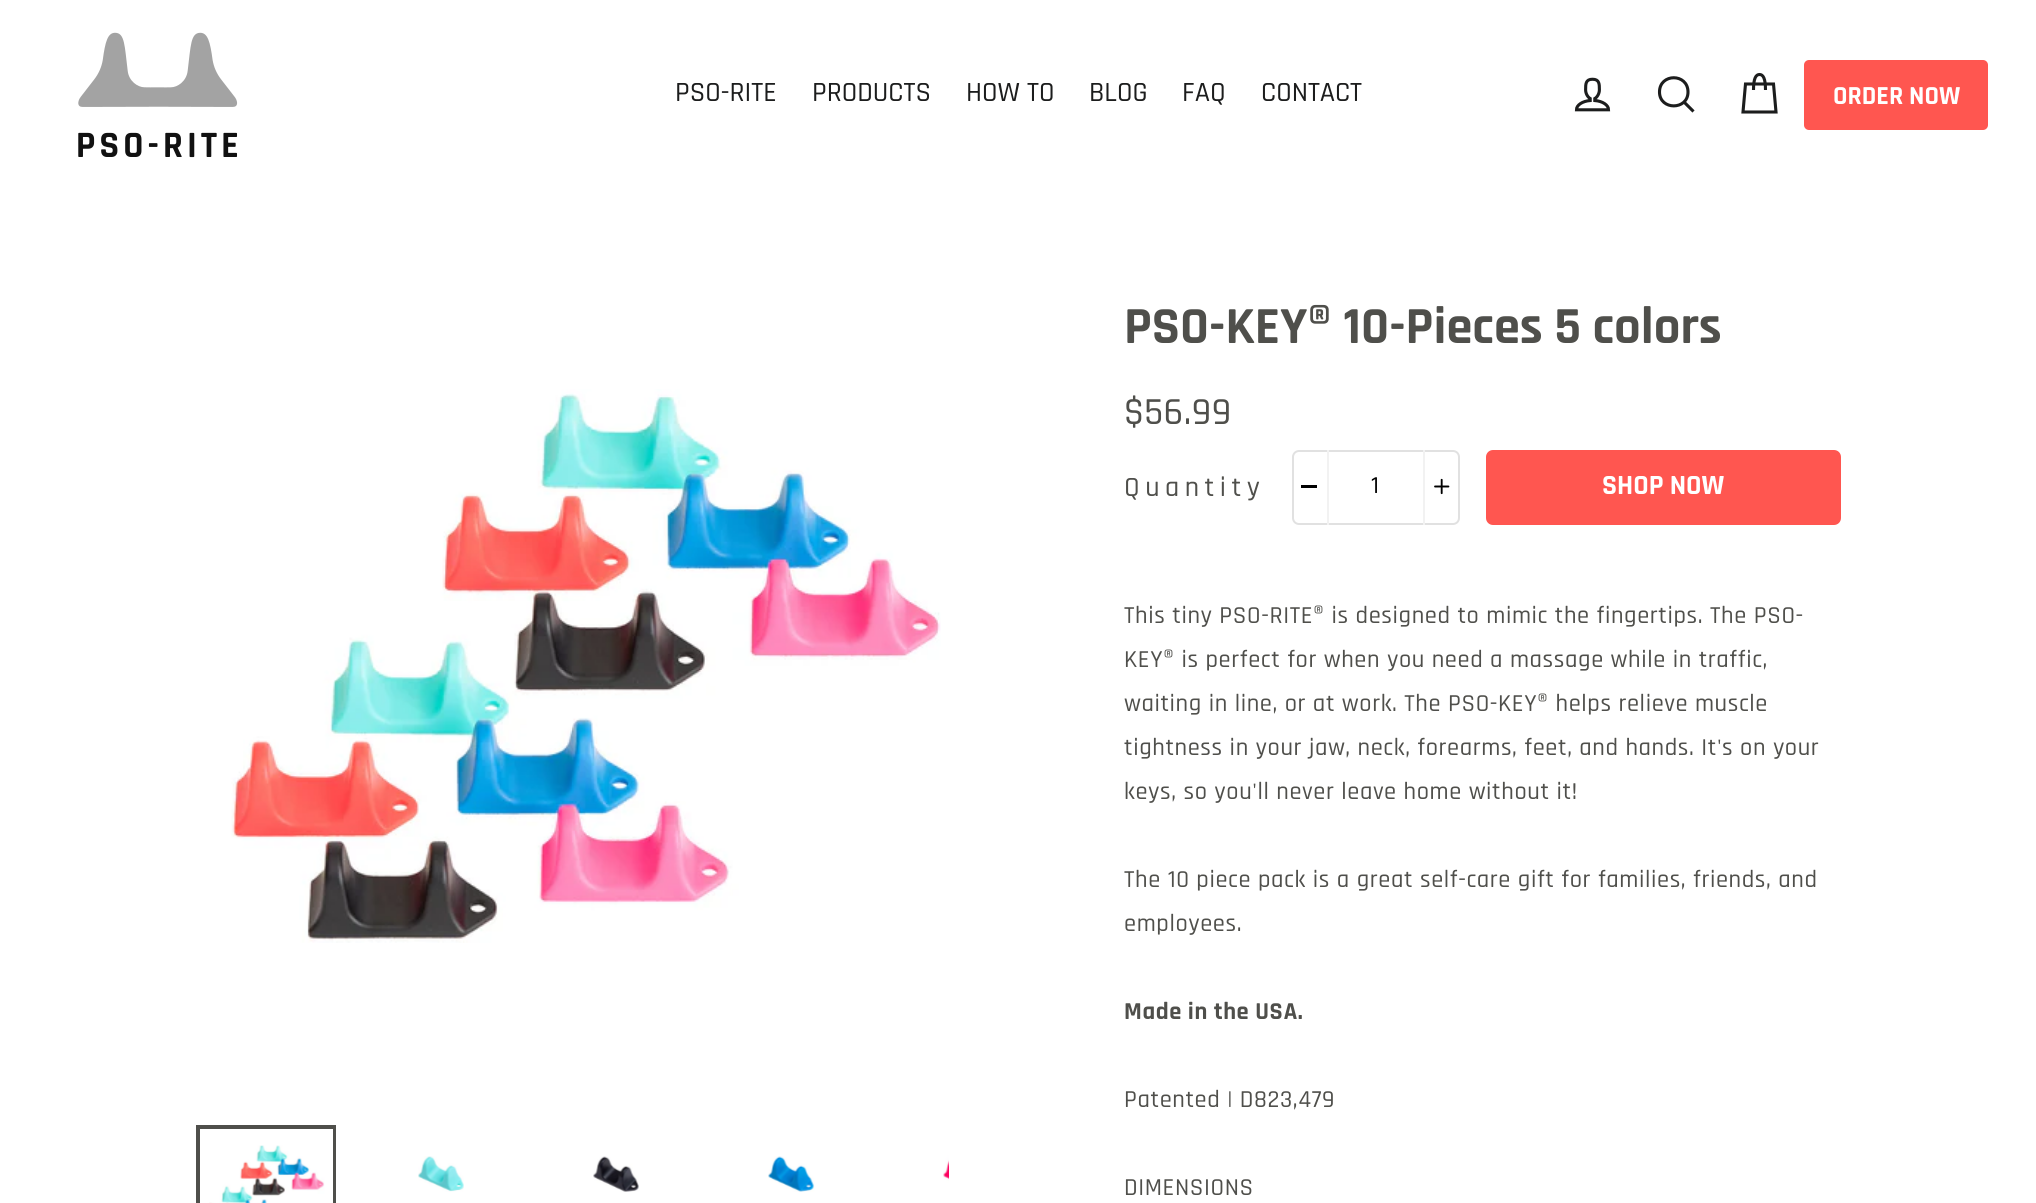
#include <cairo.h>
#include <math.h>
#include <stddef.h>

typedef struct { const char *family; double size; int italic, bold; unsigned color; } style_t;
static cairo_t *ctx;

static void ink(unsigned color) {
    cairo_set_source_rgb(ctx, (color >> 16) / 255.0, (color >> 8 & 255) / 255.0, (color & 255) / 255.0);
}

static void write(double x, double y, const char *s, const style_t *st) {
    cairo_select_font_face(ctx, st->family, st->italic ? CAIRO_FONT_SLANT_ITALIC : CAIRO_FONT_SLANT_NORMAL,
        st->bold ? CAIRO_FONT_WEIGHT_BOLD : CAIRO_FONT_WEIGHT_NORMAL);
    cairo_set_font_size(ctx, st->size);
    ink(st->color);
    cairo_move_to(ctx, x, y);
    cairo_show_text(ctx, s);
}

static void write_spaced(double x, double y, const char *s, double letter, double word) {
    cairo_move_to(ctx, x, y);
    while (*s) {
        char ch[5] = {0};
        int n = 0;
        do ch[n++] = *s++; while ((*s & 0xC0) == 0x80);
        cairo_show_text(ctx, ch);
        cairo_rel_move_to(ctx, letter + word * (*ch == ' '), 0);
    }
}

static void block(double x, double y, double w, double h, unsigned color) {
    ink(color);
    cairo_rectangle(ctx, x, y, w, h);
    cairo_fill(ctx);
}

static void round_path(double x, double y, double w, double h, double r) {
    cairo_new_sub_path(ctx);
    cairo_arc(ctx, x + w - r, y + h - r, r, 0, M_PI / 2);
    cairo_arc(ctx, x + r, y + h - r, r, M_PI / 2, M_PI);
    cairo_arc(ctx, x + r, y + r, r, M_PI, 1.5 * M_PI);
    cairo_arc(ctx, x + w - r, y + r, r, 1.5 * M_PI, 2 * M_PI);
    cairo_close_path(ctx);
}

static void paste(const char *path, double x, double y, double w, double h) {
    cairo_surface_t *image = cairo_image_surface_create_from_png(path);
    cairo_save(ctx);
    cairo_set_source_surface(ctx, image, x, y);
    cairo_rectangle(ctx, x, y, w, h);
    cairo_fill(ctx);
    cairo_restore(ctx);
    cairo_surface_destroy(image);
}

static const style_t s1 = {"Rajdhani Medium", 28, 0, 0, 0x1c1d1d};
static const style_t s2 = {"Rajdhani", 26.25, 0, 1, 0xffffff};
static const style_t s3 = {"Rajdhani", 52.5, 0, 1, 0x4f4f4b};
static const style_t s4 = {"Rajdhani", 28, 0, 1, 0xffffff};

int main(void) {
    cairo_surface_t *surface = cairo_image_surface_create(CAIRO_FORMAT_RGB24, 2036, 1203);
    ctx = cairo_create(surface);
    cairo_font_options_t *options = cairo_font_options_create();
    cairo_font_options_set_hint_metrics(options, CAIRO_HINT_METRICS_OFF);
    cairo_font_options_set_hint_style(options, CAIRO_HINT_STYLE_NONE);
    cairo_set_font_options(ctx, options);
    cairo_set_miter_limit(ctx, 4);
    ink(0xffffff);
    cairo_paint(ctx);
    paste("pic1.png", 78, 32, 160, 126);
    write(675, 101, "PSO-RITE", &s1);
    write(812, 101, "PRODUCTS", &s1);
    write(966, 101, "HOW TO", &s1);
    write(1089, 101, "BLOG", &s1);
    write(1182, 101, "FAQ", &s1);
    write(1261, 101, "CONTACT", &s1);
    paste("pic2.png", 1574, 77, 37, 35);
    cairo_new_path(ctx);
    cairo_move_to(ctx, 1688, 92);
    cairo_curve_to(ctx, 1688, 110.5, 1659.5, 110.5, 1659.5, 92);
    cairo_curve_to(ctx, 1659.5, 73, 1688, 73, 1688, 92);
    cairo_close_path(ctx);
    cairo_move_to(ctx, 1693.5, 111.5);
    cairo_line_to(ctx, 1684, 102);
    cairo_set_line_width(ctx, 3.1);
    cairo_stroke(ctx);
    cairo_new_path(ctx);
    cairo_move_to(ctx, 1753.5, 90);
    cairo_curve_to(ctx, 1753.5, 78, 1756, 74.5, 1759.5, 74.5);
    cairo_curve_to(ctx, 1763, 74.5, 1765.5, 78, 1765.5, 90);
    cairo_move_to(ctx, 1745.5, 84);
    cairo_line_to(ctx, 1773.5, 84);
    cairo_line_to(ctx, 1776, 112);
    cairo_line_to(ctx, 1743, 112);
    cairo_close_path(ctx);
    cairo_stroke(ctx);
    ink(0xff5650);
    round_path(1804, 60, 184, 70, 5);
    cairo_fill(ctx);
    write(1833, 104, "ORDER NOW", &s2);
    paste("pic3.png", 231, 389, 710, 554);
    cairo_rectangle(ctx, 198, 1127, 136, 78);
    ink(0x4f4f4b);
    cairo_set_line_width(ctx, 4);
    cairo_stroke(ctx);
    block(332, 1129, 1, 74, 0xffffff);
    paste("pic4.png", 209, 1145, 116, 58);
    paste("pic5.png", 418, 1156, 46, 36);
    paste("pic6.png", 593, 1156, 46, 36);
    paste("pic7.png", 768, 1156, 47, 36);
    paste("pic8.png", 943, 1155, 6, 37);
    write(1124, 343, "PSO-KEY® 10-Pieces 5 colors", &s3);
    cairo_select_font_face(ctx, "Rajdhani Medium", CAIRO_FONT_SLANT_NORMAL, CAIRO_FONT_WEIGHT_NORMAL);
    cairo_set_font_size(ctx, 38.5);
    write_spaced(1124, 424, "$56.99", 0.6, 0);
    cairo_set_font_size(ctx, 28);
    write_spaced(1124, 496, "Quantity", 5.5, 0);
    round_path(1293, 451, 166, 73, 6);
    ink(0xe1e1e1);
    cairo_set_line_width(ctx, 2);
    cairo_stroke(ctx);
    block(1327, 450, 2, 75, 0xf2f2f2);
    block(1301, 485, 16, 3, 0x000000);
    cairo_set_font_size(ctx, 24.5);
    write_spaced(1371, 493, "1", 0.6, 0);
    block(1423, 450, 2, 75, 0xf2f2f2);
    paste("pic9.png", 1434, 478, 16, 17);
    ink(0xff5650);
    round_path(1486, 450, 355, 75, 7);
    cairo_fill(ctx);
    write(1602, 494, "SHOP NOW", &s4);
    cairo_select_font_face(ctx, "Rajdhani Medium", CAIRO_FONT_SLANT_NORMAL, CAIRO_FONT_WEIGHT_NORMAL);
    cairo_set_font_size(ctx, 24.5);
    ink(0x4f4f4b);
    write_spaced(1124, 623, "This tiny PSO-RITE® is designed to mimic the fingertips. The PSO-", 0.6, 0);
    write_spaced(1124, 667, "KEY® is perfect for when you need a massage while in traffic,", 0.6, 0);
    write_spaced(1124, 711, "waiting in line, or at work. The PSO-KEY® helps relieve muscle", 0.6, 0);
    write_spaced(1124, 755, "tightness in your jaw, neck, forearms, feet, and hands. It's on your", 0.6, 0);
    write_spaced(1124, 799, "keys, so you'll never leave home without it!", 0.6, 0);
    write_spaced(1124, 887, "The 10 piece pack is a great self-care gift for families, friends, and", 0.6, 0);
    write_spaced(1124, 931, "employees.", 0.6, 0);
    cairo_select_font_face(ctx, "Rajdhani", CAIRO_FONT_SLANT_NORMAL, CAIRO_FONT_WEIGHT_BOLD);
    write_spaced(1124, 1019, "Made in the USA.", 0.6, 0);
    cairo_select_font_face(ctx, "Rajdhani Medium", CAIRO_FONT_SLANT_NORMAL, CAIRO_FONT_WEIGHT_NORMAL);
    write_spaced(1124, 1107, "Patented | D823,479", 0.6, 0);
    write_spaced(1124, 1195, "DIMENSIONS", 0.6, 0);
    cairo_surface_write_to_png(surface, "screenshot.png");
    cairo_font_options_destroy(options);
    cairo_destroy(ctx);
    cairo_surface_destroy(surface);
    return 0;
}
